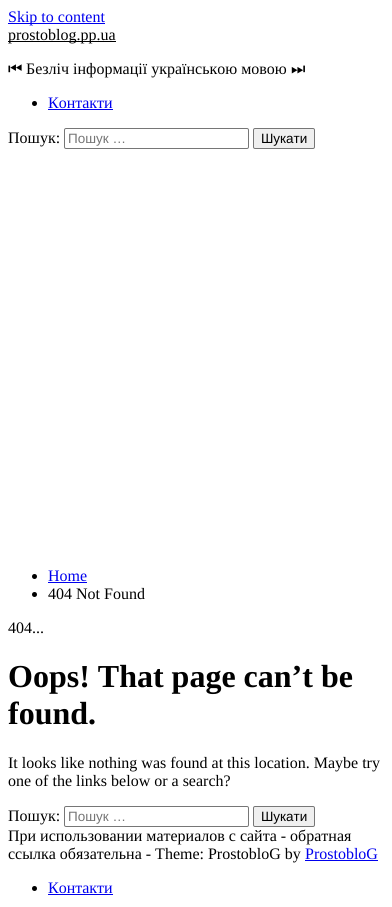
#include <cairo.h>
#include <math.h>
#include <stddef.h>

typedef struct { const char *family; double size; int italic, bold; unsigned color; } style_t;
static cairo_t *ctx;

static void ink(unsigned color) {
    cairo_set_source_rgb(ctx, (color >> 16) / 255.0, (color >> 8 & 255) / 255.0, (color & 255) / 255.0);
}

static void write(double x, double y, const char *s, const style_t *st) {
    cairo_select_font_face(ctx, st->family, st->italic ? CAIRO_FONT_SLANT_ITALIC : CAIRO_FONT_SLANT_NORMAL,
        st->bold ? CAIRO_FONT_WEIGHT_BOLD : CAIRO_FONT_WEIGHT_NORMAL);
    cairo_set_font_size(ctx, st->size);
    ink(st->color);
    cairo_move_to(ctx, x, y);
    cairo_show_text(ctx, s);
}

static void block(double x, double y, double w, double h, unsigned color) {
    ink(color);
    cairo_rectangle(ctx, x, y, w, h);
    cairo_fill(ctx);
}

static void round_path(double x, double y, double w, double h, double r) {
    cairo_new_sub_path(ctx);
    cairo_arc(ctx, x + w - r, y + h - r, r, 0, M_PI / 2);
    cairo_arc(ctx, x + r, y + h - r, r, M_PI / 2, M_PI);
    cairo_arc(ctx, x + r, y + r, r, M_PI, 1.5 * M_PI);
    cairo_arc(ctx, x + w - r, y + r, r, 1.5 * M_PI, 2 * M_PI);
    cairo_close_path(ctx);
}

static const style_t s1 = {"Liberation Serif", 16, 0, 0, 0x0000ee};
static const style_t s2 = {"Liberation Serif", 16, 0, 0, 0x000000};
static const style_t s3 = {"FreeSans", 16, 0, 0, 0x000000};
static const style_t s4 = {"Liberation Sans", 13.5, 0, 0, 0x757575};
static const style_t s5 = {"Liberation Sans", 13.5, 0, 0, 0x000000};
static const style_t s6 = {"Liberation Serif", 32, 0, 1, 0x000000};

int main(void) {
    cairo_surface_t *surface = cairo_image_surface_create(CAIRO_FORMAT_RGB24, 392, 907);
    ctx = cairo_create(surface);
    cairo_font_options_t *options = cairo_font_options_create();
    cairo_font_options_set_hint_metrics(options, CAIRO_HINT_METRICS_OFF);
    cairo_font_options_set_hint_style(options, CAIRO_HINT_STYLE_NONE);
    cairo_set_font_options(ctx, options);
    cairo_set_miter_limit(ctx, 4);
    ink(0xffffff);
    cairo_paint(ctx);
    block(8, 23, 97, 1, 0x0000ee);
    write(8, 22, "Skip to content", &s1);
    block(8, 41, 108, 1, 0x000000);
    write(8, 40, "prostoblog.pp.ua", &s2);
    write(8, 74, "⏮", &s3);
    write(26, 74, "Безліч інформації українською мовою", &s2);
    write(291, 74, "⏭", &s3);
    cairo_new_path(ctx);
    cairo_arc(ctx, 34.5, 103.5, 2.5, 0, 2 * M_PI);
    cairo_fill(ctx);
    write(48, 108, "Контакти", &s1);
    block(48, 109, 65, 1, 0x0000ee);
    write(8, 143, "Пошук:", &s2);
    round_path(64.5, 128.5, 184, 20, 1.5);
    ink(0x767676);
    cairo_set_line_width(ctx, 1);
    cairo_stroke(ctx);
    write(68, 143, "Пошук …", &s4);
    ink(0xefefef);
    round_path(253.5, 128.5, 61, 20, 1.5);
    cairo_fill_preserve(ctx);
    ink(0x767676);
    cairo_stroke(ctx);
    write(261, 143, "Шукати", &s5);
    cairo_new_path(ctx);
    cairo_arc(ctx, 34.5, 576.5, 2.5, 0, 2 * M_PI);
    cairo_fill(ctx);
    write(48, 581, "Home", &s1);
    block(48, 582, 39, 1, 0x0000ee);
    ink(0x000000);
    cairo_new_path(ctx);
    cairo_arc(ctx, 34.5, 594.5, 2.5, 0, 2 * M_PI);
    cairo_fill(ctx);
    write(48, 599, "404 Not Found", &s2);
    write(8, 633, "404...", &s2);
    write(8, 687, "Oops! That page can’t be", &s6);
    write(8, 724, "found.", &s6);
    write(8, 768, "It looks like nothing was found at this location. Maybe try", &s2);
    write(8, 786, "one of the links below or a search?", &s2);
    write(8, 821, "Пошук:", &s2);
    round_path(64.5, 806.5, 184, 20, 1.5);
    ink(0x767676);
    cairo_stroke(ctx);
    write(68, 821, "Пошук …", &s4);
    ink(0xefefef);
    round_path(253.5, 806.5, 61, 20, 1.5);
    cairo_fill_preserve(ctx);
    ink(0x767676);
    cairo_stroke(ctx);
    write(261, 821, "Шукати", &s5);
    write(8, 841, "При использовании материалов с сайта - обратная", &s2);
    write(8, 859, "ссылка обязательна - Theme: ProstobloG by", &s2);
    write(305, 859, "ProstobloG", &s1);
    block(305, 860, 73, 1, 0x0000ee);
    ink(0x000000);
    cairo_new_path(ctx);
    cairo_arc(ctx, 34.5, 888.5, 2.5, 0, 2 * M_PI);
    cairo_fill(ctx);
    write(48, 893, "Контакти", &s1);
    block(48, 894, 65, 1, 0x0000ee);
    cairo_surface_write_to_png(surface, "screenshot.png");
    cairo_font_options_destroy(options);
    cairo_destroy(ctx);
    cairo_surface_destroy(surface);
    return 0;
}
